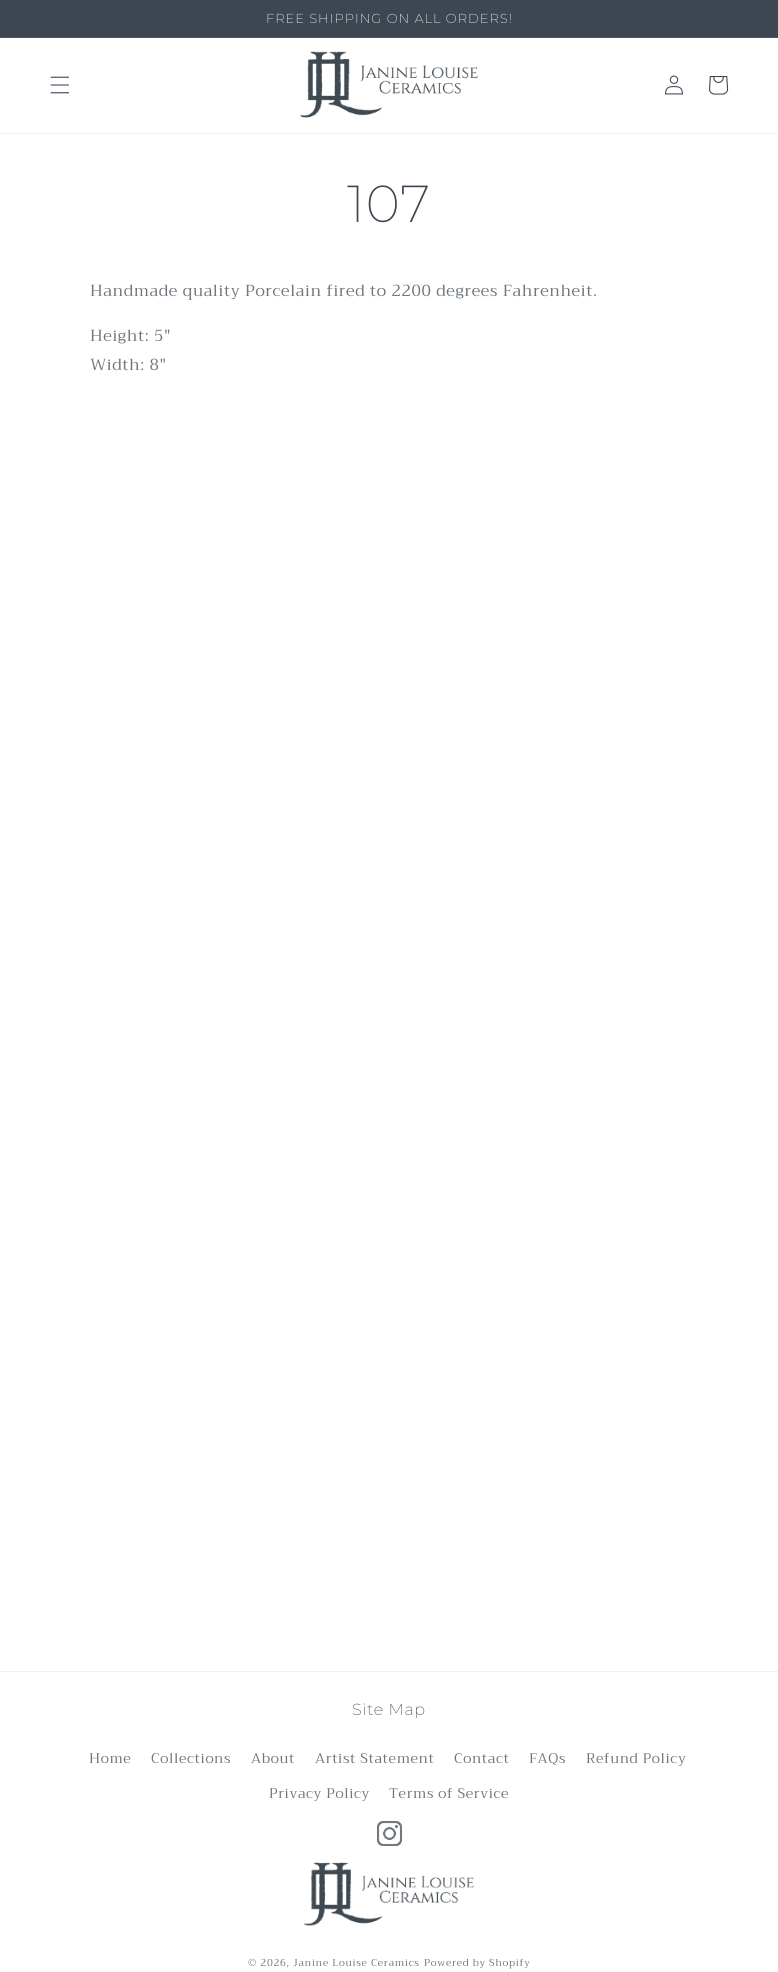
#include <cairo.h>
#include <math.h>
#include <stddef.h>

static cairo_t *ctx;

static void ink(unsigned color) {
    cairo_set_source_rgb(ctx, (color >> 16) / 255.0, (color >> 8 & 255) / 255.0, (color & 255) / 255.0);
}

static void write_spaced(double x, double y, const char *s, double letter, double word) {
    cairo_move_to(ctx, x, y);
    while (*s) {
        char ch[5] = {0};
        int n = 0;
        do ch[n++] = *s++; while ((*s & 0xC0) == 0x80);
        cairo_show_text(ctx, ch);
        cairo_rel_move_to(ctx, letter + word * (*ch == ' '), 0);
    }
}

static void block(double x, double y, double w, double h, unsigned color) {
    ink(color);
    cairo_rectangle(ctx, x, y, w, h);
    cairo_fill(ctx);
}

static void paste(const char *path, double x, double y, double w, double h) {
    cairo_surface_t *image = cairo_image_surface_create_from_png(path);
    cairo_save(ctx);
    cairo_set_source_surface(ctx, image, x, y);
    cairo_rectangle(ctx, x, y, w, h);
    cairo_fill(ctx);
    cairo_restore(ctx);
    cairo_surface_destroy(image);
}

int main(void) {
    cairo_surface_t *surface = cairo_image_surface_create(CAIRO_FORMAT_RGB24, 778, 1972);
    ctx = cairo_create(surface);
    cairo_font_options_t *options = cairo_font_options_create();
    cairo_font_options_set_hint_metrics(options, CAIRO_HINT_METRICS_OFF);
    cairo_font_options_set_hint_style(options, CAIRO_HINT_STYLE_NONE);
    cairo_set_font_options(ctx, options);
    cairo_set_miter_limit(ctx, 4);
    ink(0xffffff);
    cairo_paint(ctx);
    block(0, 0, 778, 37, 0x3d4752);
    block(0, 37, 778, 1, 0x4d5660);
    cairo_select_font_face(ctx, "Montserrat ExtraLight", CAIRO_FONT_SLANT_NORMAL, CAIRO_FONT_WEIGHT_NORMAL);
    cairo_set_font_size(ctx, 13);
    ink(0xffffff);
    write_spaced(266, 23, "FREE SHIPPING ON ALL ORDERS!", 1, 0);
    block(0, 133, 778, 1, 0xeff0f1);
    paste("pic1.png", 50, 76, 20, 18);
    paste("pic2.png", 299, 51, 180, 67);
    paste("pic3.png", 665, 75, 18, 20);
    paste("pic4.png", 709, 76, 20, 19);
    cairo_set_font_size(ctx, 52);
    ink(0x3d4752);
    write_spaced(347, 222, "107", 0.6, 0);
    cairo_select_font_face(ctx, "Trirong", CAIRO_FONT_SLANT_NORMAL, CAIRO_FONT_WEIGHT_NORMAL);
    cairo_set_font_size(ctx, 16);
    ink(0x6e757d);
    write_spaced(90, 296, "Handmade quality Porcelain fired to 2200 degrees Fahrenheit.", 0.6, 0);
    write_spaced(90, 341, "Height: 5\"", 0.6, 0);
    write_spaced(90, 370, "Width: 8\"", 0.6, 0);
    block(0, 1671, 778, 1, 0xeff0f1);
    cairo_select_font_face(ctx, "Montserrat ExtraLight", CAIRO_FONT_SLANT_NORMAL, CAIRO_FONT_WEIGHT_NORMAL);
    ink(0x3d4752);
    write_spaced(352, 1715, "Site Map", 0.6, 0);
    cairo_select_font_face(ctx, "Trirong", CAIRO_FONT_SLANT_NORMAL, CAIRO_FONT_WEIGHT_NORMAL);
    cairo_set_font_size(ctx, 14);
    ink(0x6e757d);
    write_spaced(89, 1763, "Home", 0.6, 0);
    write_spaced(151, 1763, "Collections", 0.6, 0);
    write_spaced(251, 1763, "About", 0.6, 0);
    write_spaced(315, 1763, "Artist Statement", 0.6, 0);
    write_spaced(454, 1763, "Contact", 0.6, 0);
    write_spaced(529, 1763, "FAQs", 0.6, 0);
    write_spaced(586, 1763, "Refund Policy", 0.6, 0);
    write_spaced(269, 1798, "Privacy Policy", 0.6, 0);
    write_spaced(389, 1798, "Terms of Service", 0.6, 0);
    paste("pic5.png", 377, 1821, 25, 25);
    paste("pic6.png", 303, 1862, 172, 64);
    cairo_set_font_size(ctx, 10);
    write_spaced(248, 1966, "© 2026, Janine Louise Ceramics", 0.7, 0);
    write_spaced(424, 1966, "Powered by Shopify", 0.7, 0);
    cairo_surface_write_to_png(surface, "screenshot.png");
    cairo_font_options_destroy(options);
    cairo_destroy(ctx);
    cairo_surface_destroy(surface);
    return 0;
}
